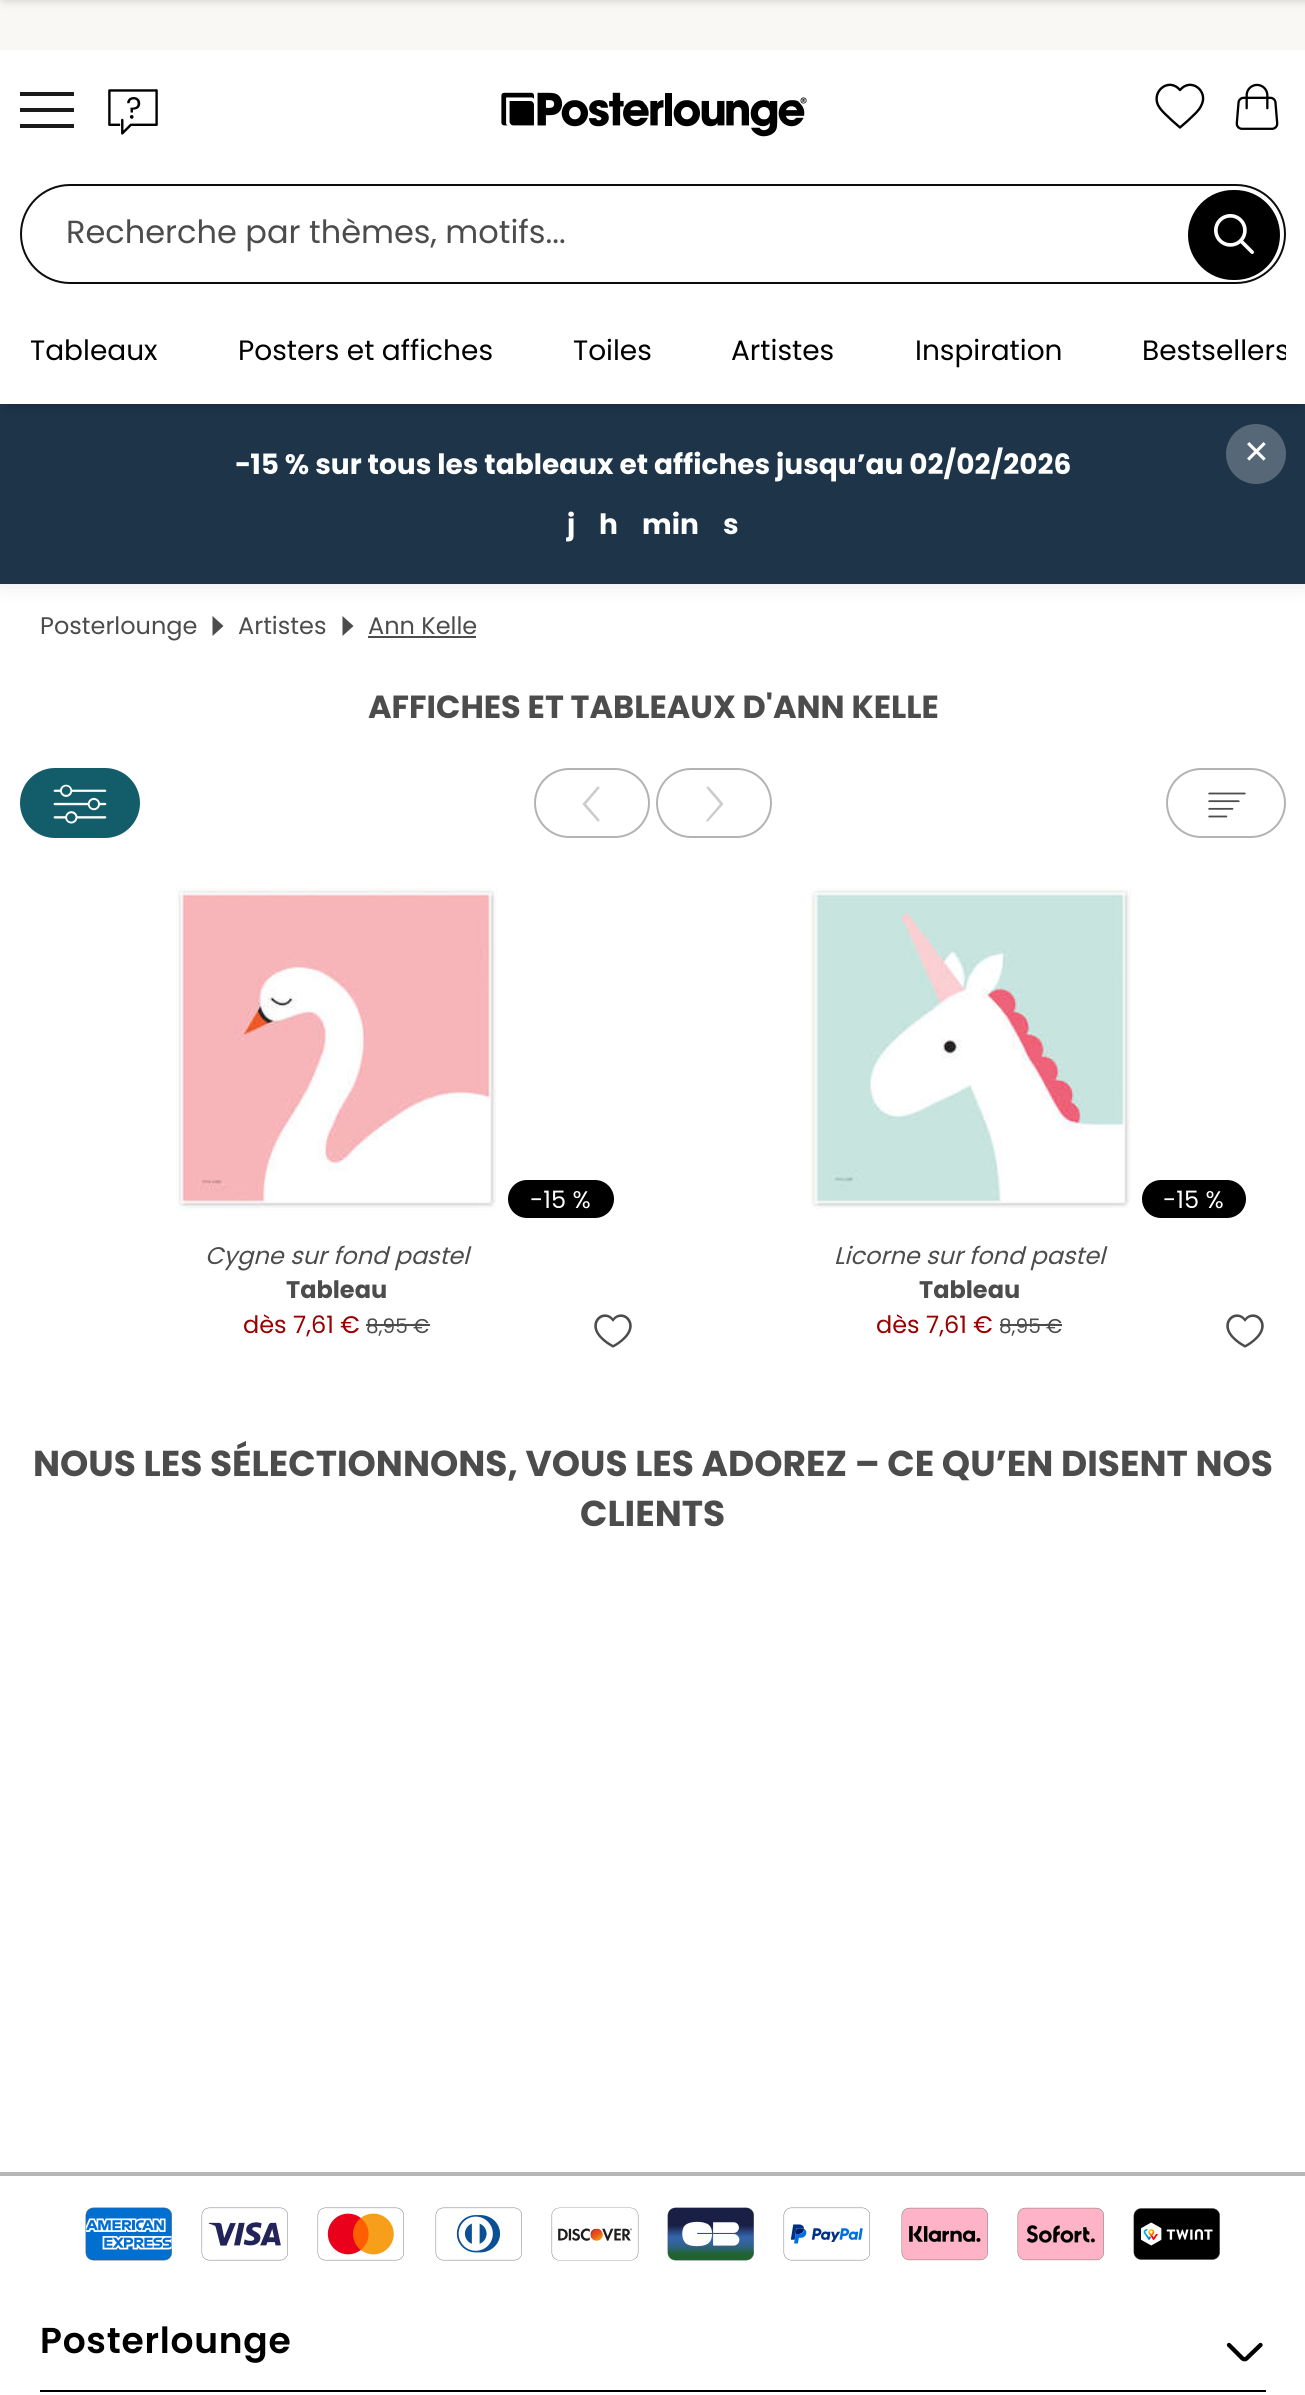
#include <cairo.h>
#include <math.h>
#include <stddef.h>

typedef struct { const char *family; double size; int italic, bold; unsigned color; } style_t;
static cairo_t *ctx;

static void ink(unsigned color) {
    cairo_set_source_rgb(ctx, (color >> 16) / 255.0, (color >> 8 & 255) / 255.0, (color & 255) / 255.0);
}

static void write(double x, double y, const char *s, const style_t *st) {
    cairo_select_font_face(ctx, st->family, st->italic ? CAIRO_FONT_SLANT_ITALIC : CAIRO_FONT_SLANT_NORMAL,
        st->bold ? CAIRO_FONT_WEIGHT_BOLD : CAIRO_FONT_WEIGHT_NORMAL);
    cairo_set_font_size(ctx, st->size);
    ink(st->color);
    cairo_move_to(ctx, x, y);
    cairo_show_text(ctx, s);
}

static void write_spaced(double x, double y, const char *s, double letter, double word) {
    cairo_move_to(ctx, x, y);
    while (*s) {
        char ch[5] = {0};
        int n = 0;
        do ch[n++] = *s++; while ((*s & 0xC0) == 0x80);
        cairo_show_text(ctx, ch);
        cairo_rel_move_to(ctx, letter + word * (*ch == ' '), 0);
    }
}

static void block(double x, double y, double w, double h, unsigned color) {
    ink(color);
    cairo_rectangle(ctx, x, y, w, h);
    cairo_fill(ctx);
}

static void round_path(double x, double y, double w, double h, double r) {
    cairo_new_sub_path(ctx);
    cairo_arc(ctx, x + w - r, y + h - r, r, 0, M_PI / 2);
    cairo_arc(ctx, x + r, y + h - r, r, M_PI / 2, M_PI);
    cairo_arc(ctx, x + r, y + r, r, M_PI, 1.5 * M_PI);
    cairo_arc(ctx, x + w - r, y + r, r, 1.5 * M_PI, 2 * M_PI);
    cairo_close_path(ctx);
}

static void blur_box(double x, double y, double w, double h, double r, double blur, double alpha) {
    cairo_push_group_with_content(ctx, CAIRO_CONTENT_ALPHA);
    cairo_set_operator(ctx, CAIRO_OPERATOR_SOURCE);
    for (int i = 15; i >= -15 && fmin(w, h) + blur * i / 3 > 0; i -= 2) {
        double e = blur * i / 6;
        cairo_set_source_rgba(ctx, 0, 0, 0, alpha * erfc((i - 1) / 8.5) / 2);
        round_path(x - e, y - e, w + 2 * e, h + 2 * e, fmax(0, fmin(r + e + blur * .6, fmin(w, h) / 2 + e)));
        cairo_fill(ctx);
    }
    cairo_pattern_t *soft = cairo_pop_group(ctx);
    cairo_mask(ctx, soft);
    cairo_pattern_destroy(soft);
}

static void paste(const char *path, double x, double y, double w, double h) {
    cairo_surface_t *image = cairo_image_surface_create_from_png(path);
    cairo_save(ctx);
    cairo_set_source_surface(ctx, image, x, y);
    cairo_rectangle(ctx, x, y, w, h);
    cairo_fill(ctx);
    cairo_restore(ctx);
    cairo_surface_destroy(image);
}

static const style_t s1 = {"Poppins", 32, 0, 0, 0x4c4c4c};
static const style_t s2 = {"Poppins", 28, 0, 0, 0x000000};
static const style_t s3 = {"Poppins", 28, 0, 1, 0xffffff};
static const style_t s4 = {"DejaVu Sans", 32, 0, 0, 0xffffff};
static const style_t s5 = {"Poppins", 24, 0, 0, 0x4c4c4c};
static const style_t s6 = {"Poppins", 32, 0, 1, 0x4c4c4c};
static const style_t s7 = {"Poppins", 24, 0, 0, 0xffffff};
static const style_t s8 = {"Poppins", 24, 1, 0, 0x4c4c4c};
static const style_t s9 = {"Poppins", 24, 0, 1, 0x4c4c4c};
static const style_t s10 = {"Poppins", 24, 0, 0, 0x990000};
static const style_t s11 = {"Poppins", 20, 0, 0, 0x4c4c4c};
static const style_t s12 = {"Poppins", 36, 0, 1, 0x4c4c4c};

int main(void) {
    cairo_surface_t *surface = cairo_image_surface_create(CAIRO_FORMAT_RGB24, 1305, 2395);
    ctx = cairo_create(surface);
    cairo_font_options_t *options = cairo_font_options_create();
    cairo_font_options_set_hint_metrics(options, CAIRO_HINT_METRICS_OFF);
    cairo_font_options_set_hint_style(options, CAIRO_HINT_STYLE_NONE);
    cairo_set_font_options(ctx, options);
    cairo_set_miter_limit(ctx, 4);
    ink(0xffffff);
    cairo_paint(ctx);
    ink(0x000000);
    blur_box(0, 404, 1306, 180, 0, 10, 0.1);
    block(0, 404, 1305, 180, 0x1d3449);
    ink(0x000000);
    blur_box(8, 18, 1290, 388, 0, 5, 0.2);
    block(0, 0, 1305, 50, 0xf9f8f4);
    ink(0x000000);
    blur_box(4, -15, 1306, 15, 0, 5, 0.2);
    block(0, 50, 1305, 354, 0xffffff);
    block(20, 92, 54, 4, 0x1a1a1a);
    block(20, 108, 54, 4, 0x1a1a1a);
    block(20, 124, 54, 4, 0x1a1a1a);
    paste("pic1.png", 108, 89, 50, 46);
    paste("pic2.png", 501, 92, 306, 45);
    cairo_new_path(ctx);
    cairo_move_to(ctx, 1180, 90);
    cairo_curve_to(ctx, 1169, 77, 1151.5, 91, 1158, 105);
    cairo_curve_to(ctx, 1161, 111, 1167.5, 116, 1172, 120.5);
    cairo_line_to(ctx, 1180, 127.5);
    cairo_line_to(ctx, 1188, 120.5);
    cairo_curve_to(ctx, 1192.5, 116, 1199, 111, 1201.5, 105);
    cairo_curve_to(ctx, 1208.5, 91, 1191, 77, 1180, 90);
    cairo_close_path(ctx);
    ink(0x000000);
    cairo_set_line_width(ctx, 2.4);
    cairo_set_line_cap(ctx, CAIRO_LINE_CAP_ROUND);
    cairo_set_line_join(ctx, CAIRO_LINE_JOIN_ROUND);
    cairo_stroke(ctx);
    paste("pic3.png", 1235, 83, 44, 47);
    round_path(21, 185, 1264, 98, 49);
    ink(0x0c0c0c);
    cairo_set_line_width(ctx, 2);
    cairo_set_line_cap(ctx, CAIRO_LINE_CAP_BUTT);
    cairo_set_line_join(ctx, CAIRO_LINE_JOIN_MITER);
    cairo_stroke(ctx);
    write(66, 243, "Recherche par thèmes, motifs...", &s1);
    ink(0x000000);
    round_path(1188, 190, 92, 90, 45);
    cairo_fill(ctx);
    paste("pic4.png", 1214, 214, 40, 40);
    write(30, 360, "Tableaux", &s2);
    write(238, 360, "Posters et affiches", &s2);
    write(573, 360, "Toiles", &s2);
    write(731, 360, "Artistes", &s2);
    write(915, 360, "Inspiration", &s2);
    cairo_save(ctx);
    cairo_rectangle(ctx, 20, 298, 1266, 106);
    cairo_clip(ctx);
    write(1142, 360, "Bestsellers", &s2);
    cairo_restore(ctx);
    write(235, 474, "−15 % sur tous les tableaux et affiches jusqu’au 02/02/2026", &s3);
    write(567, 534, "j", &s3);
    write(599, 534, "h", &s3);
    write(642, 534, "min", &s3);
    write(723, 534, "s", &s3);
    ink(0x566777);
    cairo_new_path(ctx);
    cairo_arc(ctx, 1256, 454, 30, 0, 2 * M_PI);
    cairo_fill(ctx);
    write(1243, 463, "✕", &s4);
    write(40, 634, "Posterlounge", &s5);
    cairo_new_path(ctx);
    cairo_move_to(ctx, 212.5, 616);
    cairo_line_to(ctx, 212.5, 636);
    cairo_line_to(ctx, 223.5, 626);
    cairo_close_path(ctx);
    cairo_fill(ctx);
    write(238, 634, "Artistes", &s5);
    cairo_new_path(ctx);
    cairo_move_to(ctx, 342.5, 616);
    cairo_line_to(ctx, 342.5, 636);
    cairo_line_to(ctx, 353.5, 626);
    cairo_close_path(ctx);
    cairo_fill(ctx);
    write(368, 634, "Ann Kelle", &s5);
    block(368, 636, 108, 2, 0x4c4c4c);
    write(368, 718, "AFFICHES ET TABLEAUX D'ANN KELLE", &s6);
    ink(0x135d6b);
    round_path(20, 768, 120, 70, 35);
    cairo_fill(ctx);
    paste("pic5.png", 53, 784, 54, 40);
    paste("pic6.png", 582, 786, 18, 36);
    round_path(535, 769, 114, 68, 34);
    ink(0xb3b3b3);
    cairo_stroke(ctx);
    ink(0xcccccc);
    cairo_new_path(ctx);
    cairo_move_to(ctx, 708.5, 821);
    cairo_curve_to(ctx, 707.5, 822, 706, 821.5, 706.5, 820);
    cairo_line_to(ctx, 720, 804);
    cairo_line_to(ctx, 706.5, 788);
    cairo_curve_to(ctx, 706.5, 787, 707, 786.5, 708, 786.5);
    cairo_curve_to(ctx, 709.5, 787, 722, 802, 723.5, 804);
    cairo_close_path(ctx);
    cairo_fill(ctx);
    round_path(657, 769, 114, 68, 34);
    ink(0xb3b3b3);
    cairo_stroke(ctx);
    round_path(1167, 769, 118, 68, 34);
    cairo_stroke(ctx);
    paste("pic7.png", 1208, 792, 38, 26);
    paste("pic8.png", 176, 888, 321, 323);
    ink(0x000000);
    round_path(509, 1181, 104, 36, 18);
    cairo_fill_preserve(ctx);
    cairo_stroke(ctx);
    write(530, 1208, "-15 %", &s7);
    write(205, 1264, "Cygne sur fond pastel", &s8);
    write(286, 1298, "Tableau", &s9);
    write(243, 1333, "dès 7,61 €", &s10);
    write(366, 1333, "8,95 €", &s11);
    block(366, 1324, 64, 2, 0x4c4c4c);
    paste("pic9.png", 594, 1314, 38, 34);
    paste("pic10.png", 810, 888, 321, 321);
    ink(0x000000);
    round_path(1143, 1181, 102, 36, 18);
    cairo_fill_preserve(ctx);
    cairo_stroke(ctx);
    write(1163, 1208, "-15 %", &s7);
    write(834, 1264, "Licorne sur fond pastel", &s8);
    write(919, 1298, "Tableau", &s9);
    write(876, 1333, "dès 7,61 €", &s10);
    write(999, 1333, "8,95 €", &s11);
    block(1000, 1324, 62, 2, 0x4c4c4c);
    paste("pic9.png", 1226, 1314, 38, 34);
    write(33, 1476, "NOUS LES SÉLECTIONNONS, VOUS LES ADOREZ – CE QU’EN DISENT NOS", &s12);
    write(580, 1526, "CLIENTS", &s12);
    block(0, 2172, 1305, 4, 0xb6b6b6);
    paste("pic11.png", 85, 2207, 87, 54);
    paste("pic12.png", 201, 2207, 87, 54);
    paste("pic13.png", 317, 2207, 87, 54);
    paste("pic14.png", 435, 2207, 87, 54);
    paste("pic15.png", 551, 2207, 88, 54);
    paste("pic16.png", 667, 2207, 87, 54);
    paste("pic17.png", 783, 2207, 87, 54);
    paste("pic18.png", 901, 2207, 87, 54);
    paste("pic19.png", 1017, 2207, 87, 54);
    paste("pic20.png", 1133, 2208, 87, 52);
    block(40, 2390, 1226, 2, 0x000000);
    cairo_select_font_face(ctx, "Poppins SemiBold", CAIRO_FONT_SLANT_NORMAL, CAIRO_FONT_WEIGHT_NORMAL);
    write_spaced(40, 2353, "Posterlounge", 0.75, 0);
    cairo_new_path(ctx);
    cairo_move_to(ctx, 1229, 2345);
    cairo_line_to(ctx, 1242.5, 2358.5);
    cairo_curve_to(ctx, 1244, 2359.5, 1245.5, 2359.5, 1246.5, 2358.5);
    cairo_line_to(ctx, 1260.5, 2345);
    cairo_set_line_width(ctx, 4.3);
    cairo_set_line_cap(ctx, CAIRO_LINE_CAP_ROUND);
    cairo_stroke(ctx);
    cairo_surface_write_to_png(surface, "screenshot.png");
    cairo_font_options_destroy(options);
    cairo_destroy(ctx);
    cairo_surface_destroy(surface);
    return 0;
}
